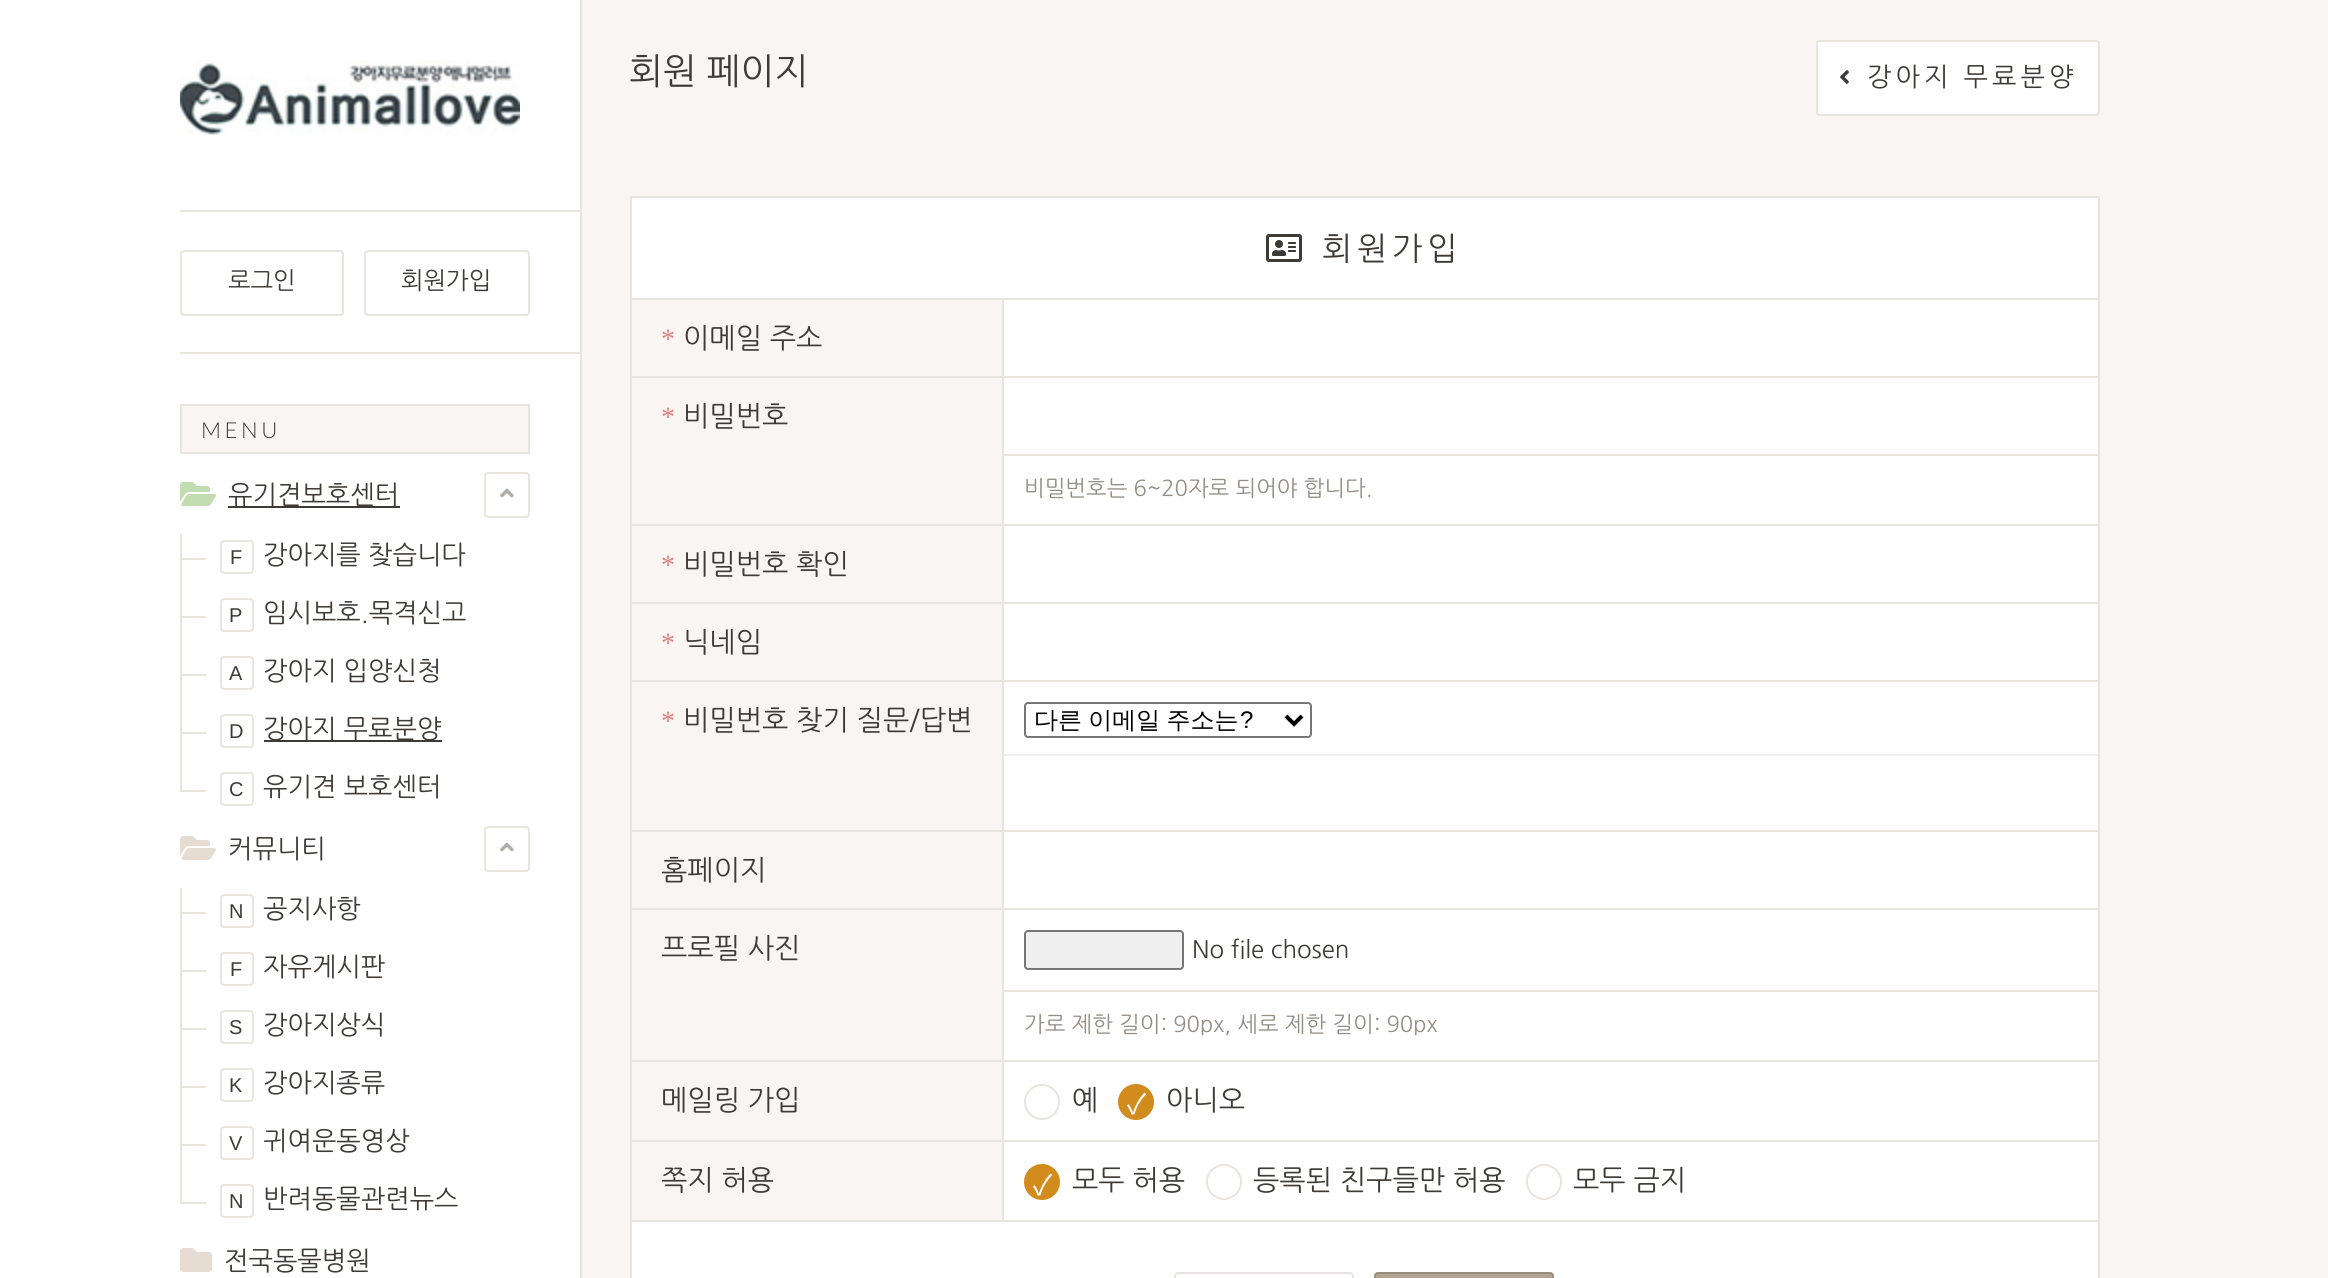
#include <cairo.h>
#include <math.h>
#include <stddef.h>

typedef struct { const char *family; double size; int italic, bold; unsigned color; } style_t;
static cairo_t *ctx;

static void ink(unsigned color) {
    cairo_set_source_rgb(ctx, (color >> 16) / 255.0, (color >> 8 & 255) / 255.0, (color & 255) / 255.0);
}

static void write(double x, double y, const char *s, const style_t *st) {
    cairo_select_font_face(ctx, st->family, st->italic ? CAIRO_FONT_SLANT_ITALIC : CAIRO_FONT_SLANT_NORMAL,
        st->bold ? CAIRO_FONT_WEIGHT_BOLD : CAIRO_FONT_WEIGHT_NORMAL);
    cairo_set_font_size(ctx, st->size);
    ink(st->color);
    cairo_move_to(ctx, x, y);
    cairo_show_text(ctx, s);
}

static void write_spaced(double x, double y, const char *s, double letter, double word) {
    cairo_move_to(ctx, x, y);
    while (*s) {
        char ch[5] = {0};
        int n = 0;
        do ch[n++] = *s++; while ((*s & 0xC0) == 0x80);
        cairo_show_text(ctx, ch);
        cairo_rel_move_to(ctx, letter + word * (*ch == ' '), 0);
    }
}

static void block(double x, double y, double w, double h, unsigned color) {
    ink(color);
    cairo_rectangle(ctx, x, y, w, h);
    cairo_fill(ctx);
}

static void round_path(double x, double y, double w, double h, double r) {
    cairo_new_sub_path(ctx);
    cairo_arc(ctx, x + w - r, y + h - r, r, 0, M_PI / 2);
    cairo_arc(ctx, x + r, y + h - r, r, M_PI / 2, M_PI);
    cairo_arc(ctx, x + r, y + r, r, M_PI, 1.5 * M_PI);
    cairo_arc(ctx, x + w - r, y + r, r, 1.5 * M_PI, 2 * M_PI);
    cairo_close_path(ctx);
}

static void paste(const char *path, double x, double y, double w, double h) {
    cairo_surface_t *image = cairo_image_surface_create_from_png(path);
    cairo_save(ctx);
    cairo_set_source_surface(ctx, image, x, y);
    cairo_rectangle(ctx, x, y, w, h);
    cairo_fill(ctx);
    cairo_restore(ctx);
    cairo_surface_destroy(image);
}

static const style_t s1 = {"NanumGothic", 24, 0, 0, 0x3e3a37};
static const style_t s2 = {"NanumGothic", 26, 0, 0, 0x3e3a37};
static const style_t s3 = {"Liberation Sans", 20, 0, 0, 0x3e3a37};
static const style_t s4 = {"NanumGothic", 36, 0, 0, 0x3e3a37};
static const style_t s5 = {"Liberation Serif", 28, 0, 0, 0xdd8282};
static const style_t s6 = {"NanumGothic", 28, 0, 0, 0x3e3a37};
static const style_t s7 = {"NanumGothic", 22, 0, 0, 0x958e88};
static const style_t s8 = {"Liberation Sans", 24, 0, 0, 0x000000};
static const style_t s9 = {"Noto Sans CJK KR", 28, 0, 0, 0xffffff};

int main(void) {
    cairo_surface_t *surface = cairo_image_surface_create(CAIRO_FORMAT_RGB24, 2328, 1278);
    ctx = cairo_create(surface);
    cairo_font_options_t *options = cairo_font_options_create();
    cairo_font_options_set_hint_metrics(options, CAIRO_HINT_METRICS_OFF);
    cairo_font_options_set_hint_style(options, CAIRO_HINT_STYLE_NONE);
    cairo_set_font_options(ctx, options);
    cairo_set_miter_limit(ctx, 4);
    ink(0xffffff);
    cairo_paint(ctx);
    block(582, 0, 1746, 1278, 0xf8f5f2);
    block(580, 0, 2, 1278, 0xe8e4df);
    block(180, 210, 400, 2, 0xe8e4df);
    paste("pic1.png", 180, 60, 340, 75);
    block(180, 352, 400, 2, 0xe8e4df);
    round_path(181, 251, 162, 64, 3);
    cairo_stroke(ctx);
    write(228, 289, "로그인", &s1);
    round_path(365, 251, 164, 64, 3);
    ink(0xe8e4df);
    cairo_stroke(ctx);
    write(401, 289, "회원가입", &s1);
    ink(0xf8f5f2);
    cairo_rectangle(ctx, 181, 405, 348, 48);
    cairo_fill_preserve(ctx);
    ink(0xe8e4df);
    cairo_stroke(ctx);
    cairo_select_font_face(ctx, "Lato Light", CAIRO_FONT_SLANT_NORMAL, CAIRO_FONT_WEIGHT_NORMAL);
    cairo_set_font_size(ctx, 22);
    ink(0x3e3a37);
    write_spaced(201, 438, "MENU", 3.5, 0);
    paste("pic2.png", 180, 482, 36, 24);
    block(228, 506, 172, 2, 0x3e3a37);
    write(228, 504, "유기견보호센터", &s2);
    round_path(485, 473, 44, 44, 3);
    ink(0xe8e4df);
    cairo_stroke(ctx);
    paste("pic3.png", 500, 488, 14, 10);
    block(180, 558, 26, 2, 0xe8e4df);
    block(180, 534, 2, 26, 0xe8e4df);
    round_path(221, 541, 32, 32, 3);
    cairo_stroke(ctx);
    write(230, 564, "F", &s3);
    write(263, 564, "강아지를 찾습니다", &s2);
    block(180, 616, 26, 2, 0xe8e4df);
    block(180, 556, 2, 62, 0xe8e4df);
    round_path(221, 599, 32, 32, 3);
    cairo_stroke(ctx);
    write(229, 622, "P", &s3);
    write(263, 622, "임시보호.목격신고", &s2);
    block(180, 674, 26, 2, 0xe8e4df);
    block(180, 614, 2, 62, 0xe8e4df);
    round_path(221, 657, 32, 32, 3);
    cairo_stroke(ctx);
    write(229, 680, "A", &s3);
    write(263, 680, "강아지 입양신청", &s2);
    block(180, 732, 26, 2, 0xe8e4df);
    block(180, 672, 2, 62, 0xe8e4df);
    round_path(221, 715, 32, 32, 3);
    cairo_stroke(ctx);
    write(229, 738, "D", &s3);
    block(264, 740, 178, 2, 0x3e3a37);
    write(263, 738, "강아지 무료분양", &s2);
    block(180, 790, 26, 2, 0xe8e4df);
    block(180, 730, 2, 62, 0xe8e4df);
    round_path(221, 773, 32, 32, 3);
    cairo_stroke(ctx);
    write(229, 796, "C", &s3);
    write(263, 796, "유기견 보호센터", &s2);
    paste("pic4.png", 180, 836, 36, 24);
    write(228, 858, "커뮤니티", &s2);
    round_path(485, 827, 44, 44, 3);
    ink(0xe8e4df);
    cairo_stroke(ctx);
    paste("pic3.png", 500, 842, 14, 10);
    block(180, 912, 26, 2, 0xe8e4df);
    block(180, 888, 2, 26, 0xe8e4df);
    round_path(221, 895, 32, 32, 3);
    cairo_stroke(ctx);
    write(229, 918, "N", &s3);
    write(263, 918, "공지사항", &s2);
    block(180, 970, 26, 2, 0xe8e4df);
    block(180, 910, 2, 62, 0xe8e4df);
    round_path(221, 953, 32, 32, 3);
    cairo_stroke(ctx);
    write(230, 976, "F", &s3);
    write(263, 976, "자유게시판", &s2);
    block(180, 1028, 26, 2, 0xe8e4df);
    block(180, 968, 2, 62, 0xe8e4df);
    round_path(221, 1011, 32, 32, 3);
    cairo_stroke(ctx);
    write(229, 1034, "S", &s3);
    write(263, 1034, "강아지상식", &s2);
    block(180, 1086, 26, 2, 0xe8e4df);
    block(180, 1026, 2, 62, 0xe8e4df);
    round_path(221, 1069, 32, 32, 3);
    cairo_stroke(ctx);
    write(229, 1092, "K", &s3);
    write(263, 1092, "강아지종류", &s2);
    block(180, 1144, 26, 2, 0xe8e4df);
    block(180, 1084, 2, 62, 0xe8e4df);
    round_path(221, 1127, 32, 32, 3);
    cairo_stroke(ctx);
    write(229, 1150, "V", &s3);
    write(263, 1150, "귀여운동영상", &s2);
    block(180, 1202, 26, 2, 0xe8e4df);
    block(180, 1142, 2, 62, 0xe8e4df);
    round_path(221, 1185, 32, 32, 3);
    cairo_stroke(ctx);
    write(229, 1208, "N", &s3);
    write(263, 1208, "반려동물관련뉴스", &s2);
    paste("pic5.png", 180, 1248, 32, 24);
    write(224, 1270, "전국동물병원", &s2);
    write(629, 84, "회원 페이지", &s4);
    ink(0xffffff);
    round_path(1817, 41, 282, 74, 3);
    cairo_fill_preserve(ctx);
    ink(0xe8e4df);
    cairo_stroke(ctx);
    paste("pic6.png", 1840, 70, 9, 14);
    cairo_set_font_size(ctx, 26);
    ink(0x3e3a37);
    write_spaced(1867, 86, "강아지 무료분양", 4, 0);
    ink(0xffffff);
    cairo_rectangle(ctx, 631, 197, 1468, 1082);
    cairo_fill_preserve(ctx);
    ink(0xe8e4df);
    cairo_stroke(ctx);
    block(632, 298, 1466, 2, 0xe8e4df);
    paste("pic7.png", 1266, 234, 36, 28);
    cairo_set_font_size(ctx, 32);
    ink(0x3e3a37);
    write_spaced(1322, 260, "회원가입", 5, 0);
    block(630, 376, 1468, 2, 0xe8e4df);
    block(632, 300, 370, 76, 0xf8f5f2);
    write(661, 348, "*", &s5);
    write(683, 348, "이메일 주소", &s6);
    block(630, 524, 1468, 2, 0xe8e4df);
    block(632, 378, 370, 146, 0xf8f5f2);
    write(661, 426, "*", &s5);
    write(683, 426, "비밀번호", &s6);
    block(1004, 454, 1094, 2, 0xe8e4df);
    write(1024, 496, "비밀번호는 6~20자로 되어야 합니다.", &s7);
    block(630, 602, 1468, 2, 0xe8e4df);
    block(632, 526, 370, 76, 0xf8f5f2);
    write(661, 574, "*", &s5);
    write(683, 574, "비밀번호 확인", &s6);
    block(630, 680, 1468, 2, 0xe8e4df);
    block(632, 604, 370, 76, 0xf8f5f2);
    write(661, 652, "*", &s5);
    write(683, 652, "닉네임", &s6);
    block(630, 830, 1468, 2, 0xe8e4df);
    block(632, 682, 370, 148, 0xf8f5f2);
    write(661, 730, "*", &s5);
    write(683, 730, "비밀번호 찾기 질문/답변", &s6);
    round_path(1025, 703, 286, 34, 3);
    ink(0x767676);
    cairo_stroke(ctx);
    cairo_new_path(ctx);
    cairo_move_to(ctx, 1286, 716);
    cairo_line_to(ctx, 1294, 724);
    cairo_line_to(ctx, 1302, 716);
    ink(0x000000);
    cairo_set_line_width(ctx, 4);
    cairo_stroke(ctx);
    cairo_select_font_face(ctx, "WenQuanYi Zen Hei Medium", CAIRO_FONT_SLANT_NORMAL, CAIRO_FONT_WEIGHT_NORMAL);
    cairo_set_font_size(ctx, 24);
    write_spaced(1034, 728, "다른 이메일 주소는", 0, -1);
    write(1240, 728, "?", &s8);
    block(1004, 754, 1094, 2, 0xeeeeee);
    block(630, 908, 1468, 2, 0xe8e4df);
    block(632, 832, 370, 76, 0xf8f5f2);
    write(661, 880, "홈페이지", &s6);
    block(630, 1060, 1468, 2, 0xe8e4df);
    block(632, 910, 370, 150, 0xf8f5f2);
    write(661, 958, "프로필 사진", &s6);
    ink(0xefefef);
    round_path(1025, 931, 158, 38, 3);
    cairo_fill_preserve(ctx);
    ink(0x767676);
    cairo_set_line_width(ctx, 2);
    cairo_stroke(ctx);
    write(1192, 958, "No file chosen", &s1);
    block(1004, 990, 1094, 2, 0xe8e4df);
    write(1024, 1032, "가로 제한 길이: 90px, 세로 제한 길이: 90px", &s7);
    block(630, 1140, 1468, 2, 0xe8e4df);
    block(632, 1062, 370, 78, 0xf8f5f2);
    write(661, 1110, "메일링 가입", &s6);
    cairo_new_path(ctx);
    cairo_arc(ctx, 1042, 1102, 17, 0, 2 * M_PI);
    ink(0xe8e4df);
    cairo_stroke(ctx);
    write(1072, 1110, "예", &s6);
    ink(0xd28c1d);
    cairo_new_path(ctx);
    cairo_arc(ctx, 1136, 1102, 17, 0, 2 * M_PI);
    cairo_fill_preserve(ctx);
    cairo_stroke(ctx);
    write(1127, 1114, "✓", &s9);
    write(1166, 1110, "아니오", &s6);
    block(630, 1220, 1468, 2, 0xe8e4df);
    block(632, 1142, 370, 78, 0xf8f5f2);
    block(1002, 300, 2, 922, 0xe8e4df);
    write(661, 1190, "쪽지 허용", &s6);
    ink(0xd28c1d);
    cairo_new_path(ctx);
    cairo_arc(ctx, 1042, 1182, 17, 0, 2 * M_PI);
    cairo_fill_preserve(ctx);
    cairo_stroke(ctx);
    write(1033, 1195, "✓", &s9);
    write(1072, 1190, "모두 허용", &s6);
    cairo_new_path(ctx);
    cairo_arc(ctx, 1224, 1182, 17, 0, 2 * M_PI);
    ink(0xe8e4df);
    cairo_stroke(ctx);
    write(1253, 1190, "등록된 친구들만 허용", &s6);
    cairo_new_path(ctx);
    cairo_arc(ctx, 1544, 1182, 17, 0, 2 * M_PI);
    ink(0xe8e4df);
    cairo_stroke(ctx);
    write(1573, 1190, "모두 금지", &s6);
    round_path(1175, 1273, 178, 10, 3);
    ink(0xe8e4df);
    cairo_stroke(ctx);
    ink(0xb4a393);
    round_path(1375, 1273, 178, 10, 3);
    cairo_fill_preserve(ctx);
    ink(0x998b7d);
    cairo_stroke(ctx);
    cairo_surface_write_to_png(surface, "screenshot.png");
    cairo_font_options_destroy(options);
    cairo_destroy(ctx);
    cairo_surface_destroy(surface);
    return 0;
}
